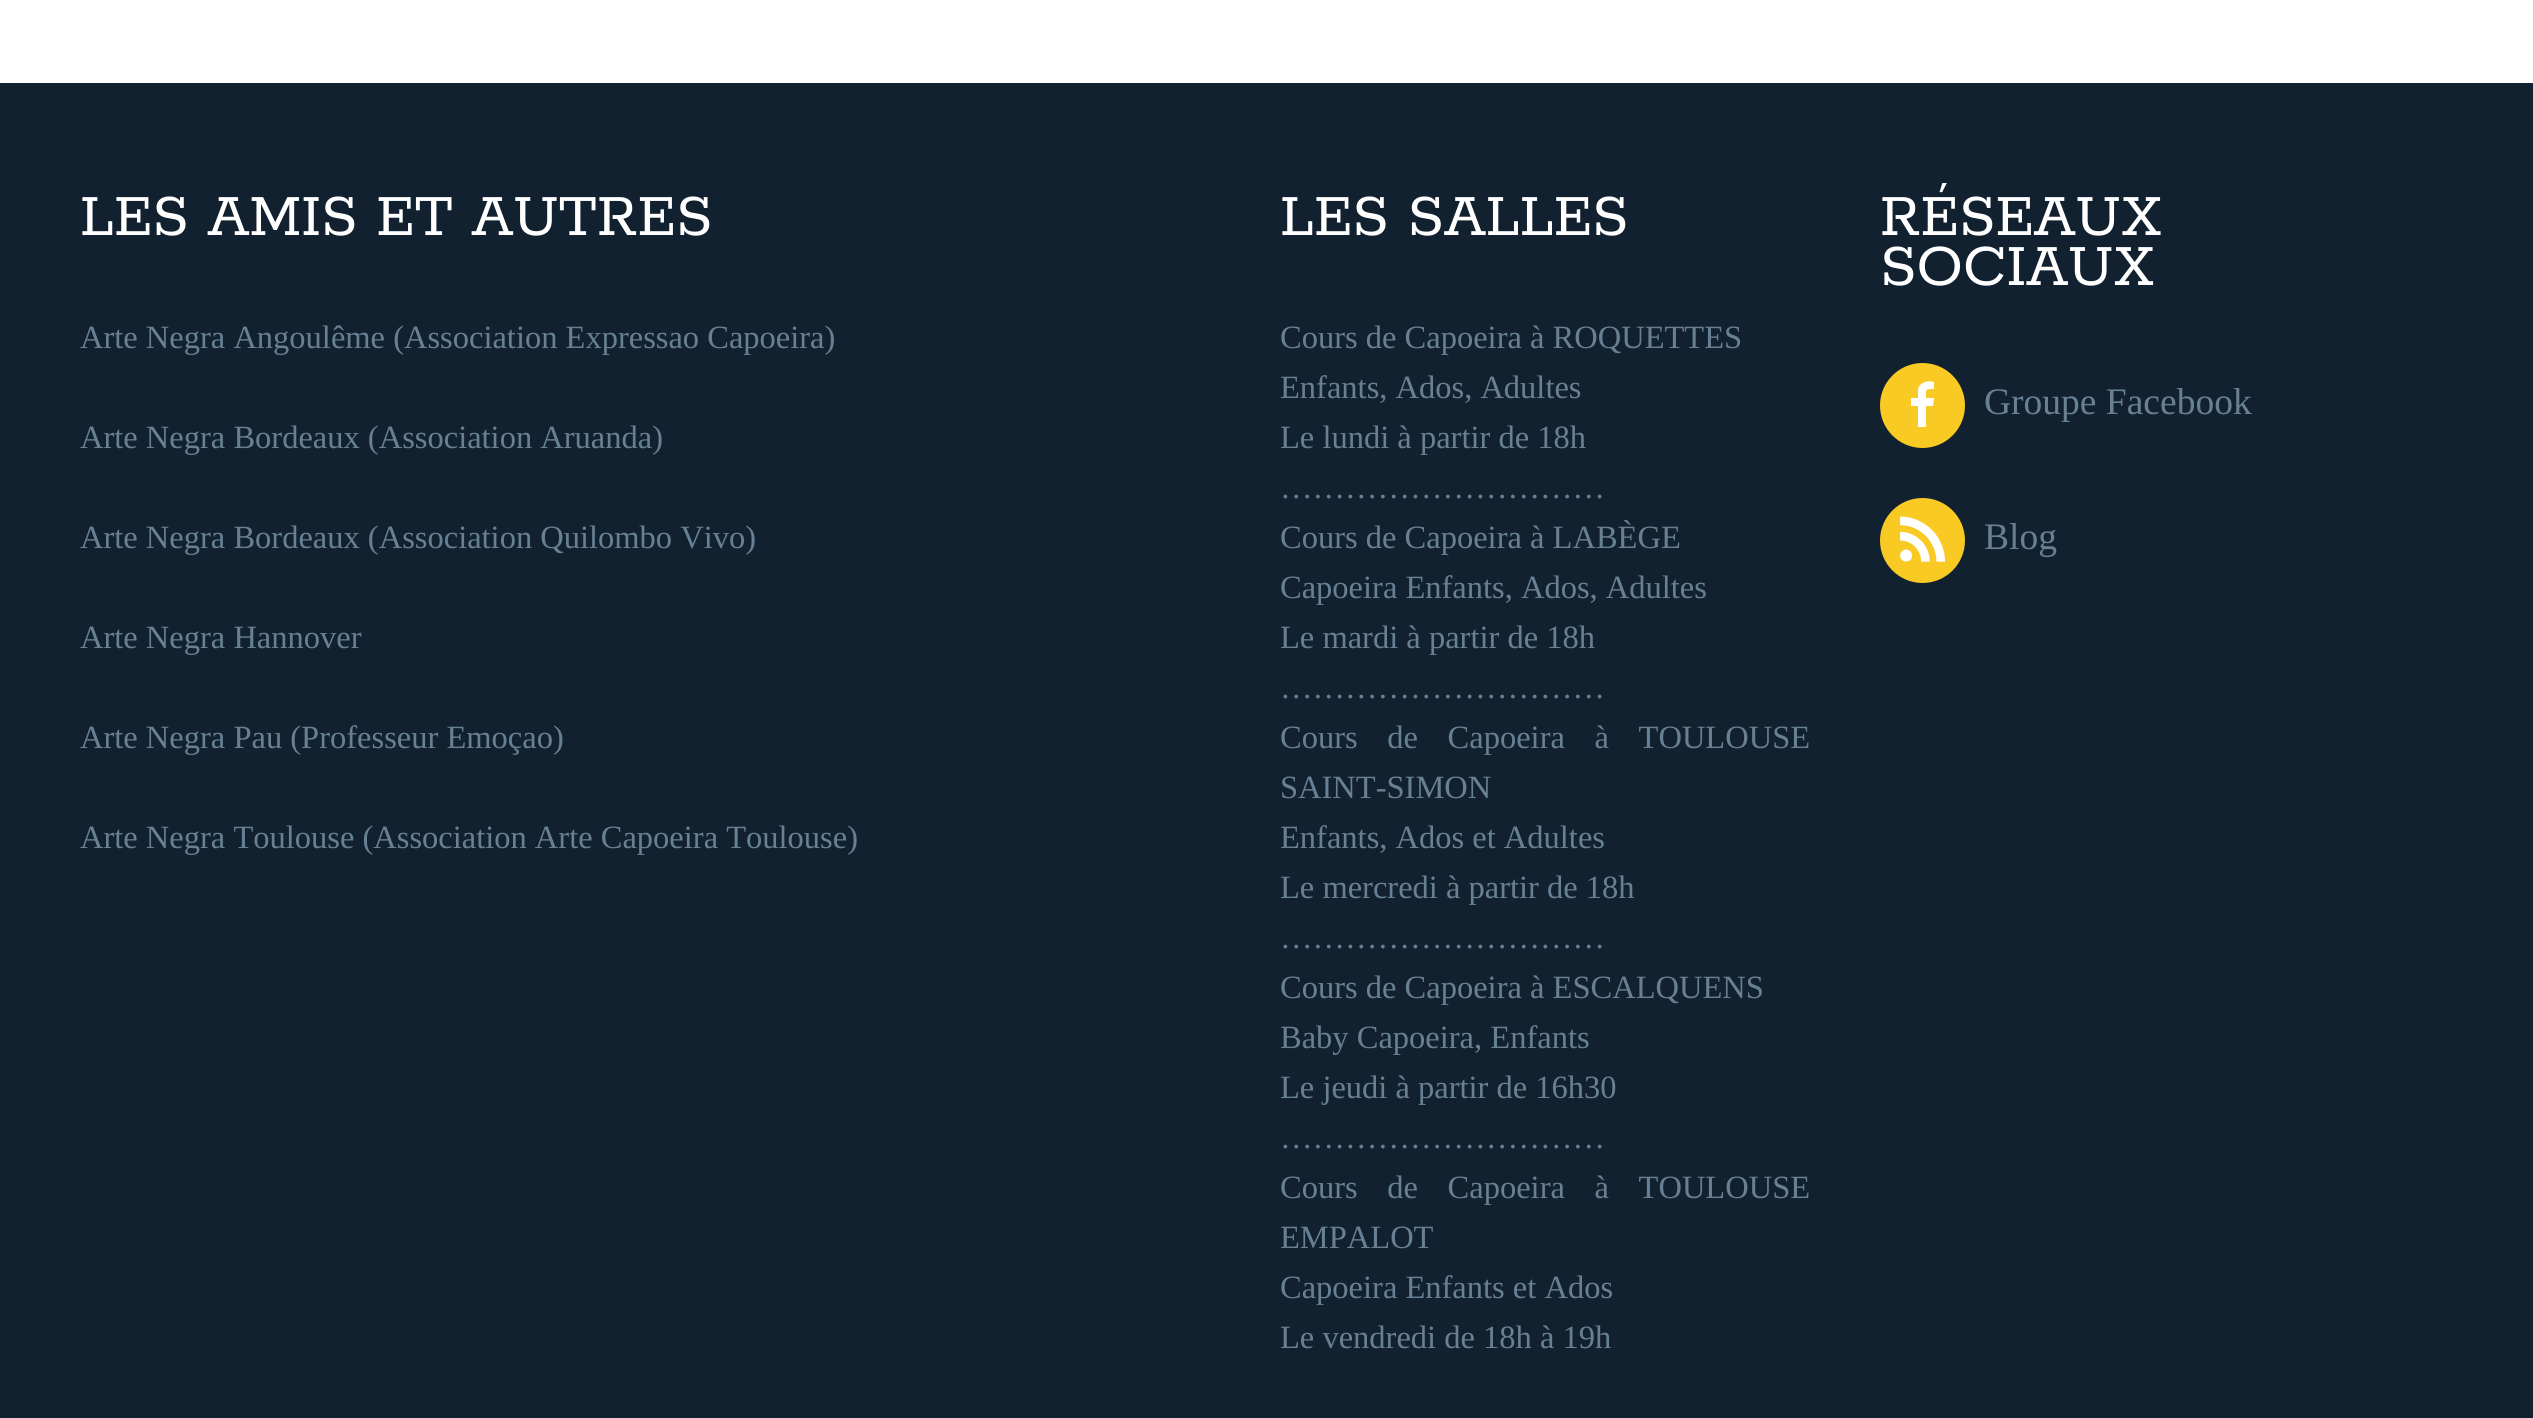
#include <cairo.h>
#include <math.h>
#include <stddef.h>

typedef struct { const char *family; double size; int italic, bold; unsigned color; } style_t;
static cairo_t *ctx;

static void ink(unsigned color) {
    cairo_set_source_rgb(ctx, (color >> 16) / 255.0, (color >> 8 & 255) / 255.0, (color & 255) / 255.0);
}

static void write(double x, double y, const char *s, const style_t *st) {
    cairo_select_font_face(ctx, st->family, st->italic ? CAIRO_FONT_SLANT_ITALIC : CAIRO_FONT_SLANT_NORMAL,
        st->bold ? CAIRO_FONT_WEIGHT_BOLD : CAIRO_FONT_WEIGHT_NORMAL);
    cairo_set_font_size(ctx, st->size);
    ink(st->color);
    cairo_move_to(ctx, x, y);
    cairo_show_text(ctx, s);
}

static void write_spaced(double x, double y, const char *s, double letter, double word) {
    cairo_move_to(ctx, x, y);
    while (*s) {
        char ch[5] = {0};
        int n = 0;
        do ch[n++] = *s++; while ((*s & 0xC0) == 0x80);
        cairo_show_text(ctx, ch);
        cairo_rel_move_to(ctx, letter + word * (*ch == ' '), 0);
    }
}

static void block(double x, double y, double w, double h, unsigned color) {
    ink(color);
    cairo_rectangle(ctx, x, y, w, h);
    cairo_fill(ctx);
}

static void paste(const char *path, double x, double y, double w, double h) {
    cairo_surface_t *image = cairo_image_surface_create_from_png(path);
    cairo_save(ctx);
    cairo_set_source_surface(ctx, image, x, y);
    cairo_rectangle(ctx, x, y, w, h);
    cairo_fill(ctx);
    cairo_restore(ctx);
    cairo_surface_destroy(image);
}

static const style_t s1 = {"Rokkitt SemiBold", 65, 0, 0, 0xffffff};
static const style_t s2 = {"Liberation Serif", 32.5, 0, 0, 0x688094};
static const style_t s3 = {"Liberation Serif", 37.5, 0, 0, 0x688094};

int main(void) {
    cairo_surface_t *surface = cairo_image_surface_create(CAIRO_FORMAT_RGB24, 2533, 1418);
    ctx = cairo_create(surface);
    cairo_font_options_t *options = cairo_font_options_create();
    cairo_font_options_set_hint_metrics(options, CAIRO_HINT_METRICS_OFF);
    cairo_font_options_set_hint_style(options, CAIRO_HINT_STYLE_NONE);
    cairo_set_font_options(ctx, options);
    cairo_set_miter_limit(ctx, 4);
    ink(0xffffff);
    cairo_paint(ctx);
    block(0, 83, 2533, 1335, 0x12212f);
    write(80, 235, "LES AMIS ET AUTRES", &s1);
    write(80, 348, "Arte Negra Angoulême (Association Expressao Capoeira)", &s2);
    write(80, 448, "Arte Negra Bordeaux (Association Aruanda)", &s2);
    write(80, 548, "Arte Negra Bordeaux (Association Quilombo Vivo)", &s2);
    write(80, 648, "Arte Negra Hannover", &s2);
    write(80, 748, "Arte Negra Pau (Professeur Emoçao)", &s2);
    write(80, 848, "Arte Negra Toulouse (Association Arte Capoeira Toulouse)", &s2);
    write(1280, 235, "LES SALLES", &s1);
    write(1280, 348, "Cours de Capoeira à ROQUETTES", &s2);
    write(1280, 398, "Enfants, Ados, Adultes", &s2);
    write(1280, 448, "Le lundi à partir de 18h", &s2);
    write(1280, 498, "…………………………", &s2);
    write(1280, 548, "Cours de Capoeira à LABÈGE", &s2);
    write(1280, 598, "Capoeira Enfants, Ados, Adultes", &s2);
    write(1280, 648, "Le mardi à partir de 18h", &s2);
    write(1280, 698, "…………………………", &s2);
    write_spaced(1280, 748, "Cours de Capoeira à TOULOUSE", 0, 21.5);
    write(1280, 798, "SAINT-SIMON", &s2);
    write(1280, 848, "Enfants, Ados et Adultes", &s2);
    write(1280, 898, "Le mercredi à partir de 18h", &s2);
    write(1280, 948, "…………………………", &s2);
    write(1280, 998, "Cours de Capoeira à ESCALQUENS", &s2);
    write(1280, 1048, "Baby Capoeira, Enfants", &s2);
    write(1280, 1098, "Le jeudi à partir de 16h30", &s2);
    write(1280, 1148, "…………………………", &s2);
    write_spaced(1280, 1198, "Cours de Capoeira à TOULOUSE", 0, 21.5);
    write(1280, 1248, "EMPALOT", &s2);
    write(1280, 1298, "Capoeira Enfants et Ados", &s2);
    write(1280, 1348, "Le vendredi de 18h à 19h", &s2);
    write(1880, 235, "RÉSEAUX", &s1);
    write(1880, 285, "SOCIAUX", &s1);
    ink(0xf8ca23);
    cairo_new_path(ctx);
    cairo_arc(ctx, 1922.5, 405.5, 42.5, 0, 2 * M_PI);
    cairo_fill(ctx);
    ink(0xffffff);
    cairo_new_path(ctx);
    cairo_move_to(ctx, 1926, 427);
    cairo_line_to(ctx, 1926, 406);
    cairo_line_to(ctx, 1933, 406);
    cairo_line_to(ctx, 1934, 398);
    cairo_line_to(ctx, 1926, 398);
    cairo_curve_to(ctx, 1926, 389, 1925, 389, 1934, 389);
    cairo_line_to(ctx, 1934, 382);
    cairo_curve_to(ctx, 1928, 380, 1920, 382, 1918, 389);
    cairo_line_to(ctx, 1918, 398);
    cairo_line_to(ctx, 1911, 398);
    cairo_line_to(ctx, 1911, 406);
    cairo_line_to(ctx, 1918, 406);
    cairo_line_to(ctx, 1918, 427);
    cairo_close_path(ctx);
    cairo_fill(ctx);
    write(1984, 414, "Groupe Facebook", &s3);
    ink(0xf8ca23);
    cairo_new_path(ctx);
    cairo_arc(ctx, 1922.5, 540.5, 42.5, 0, 2 * M_PI);
    cairo_fill(ctx);
    paste("pic1.png", 1900, 516, 45, 46);
    write(1984, 549, "Blog", &s3);
    cairo_surface_write_to_png(surface, "screenshot.png");
    cairo_font_options_destroy(options);
    cairo_destroy(ctx);
    cairo_surface_destroy(surface);
    return 0;
}
